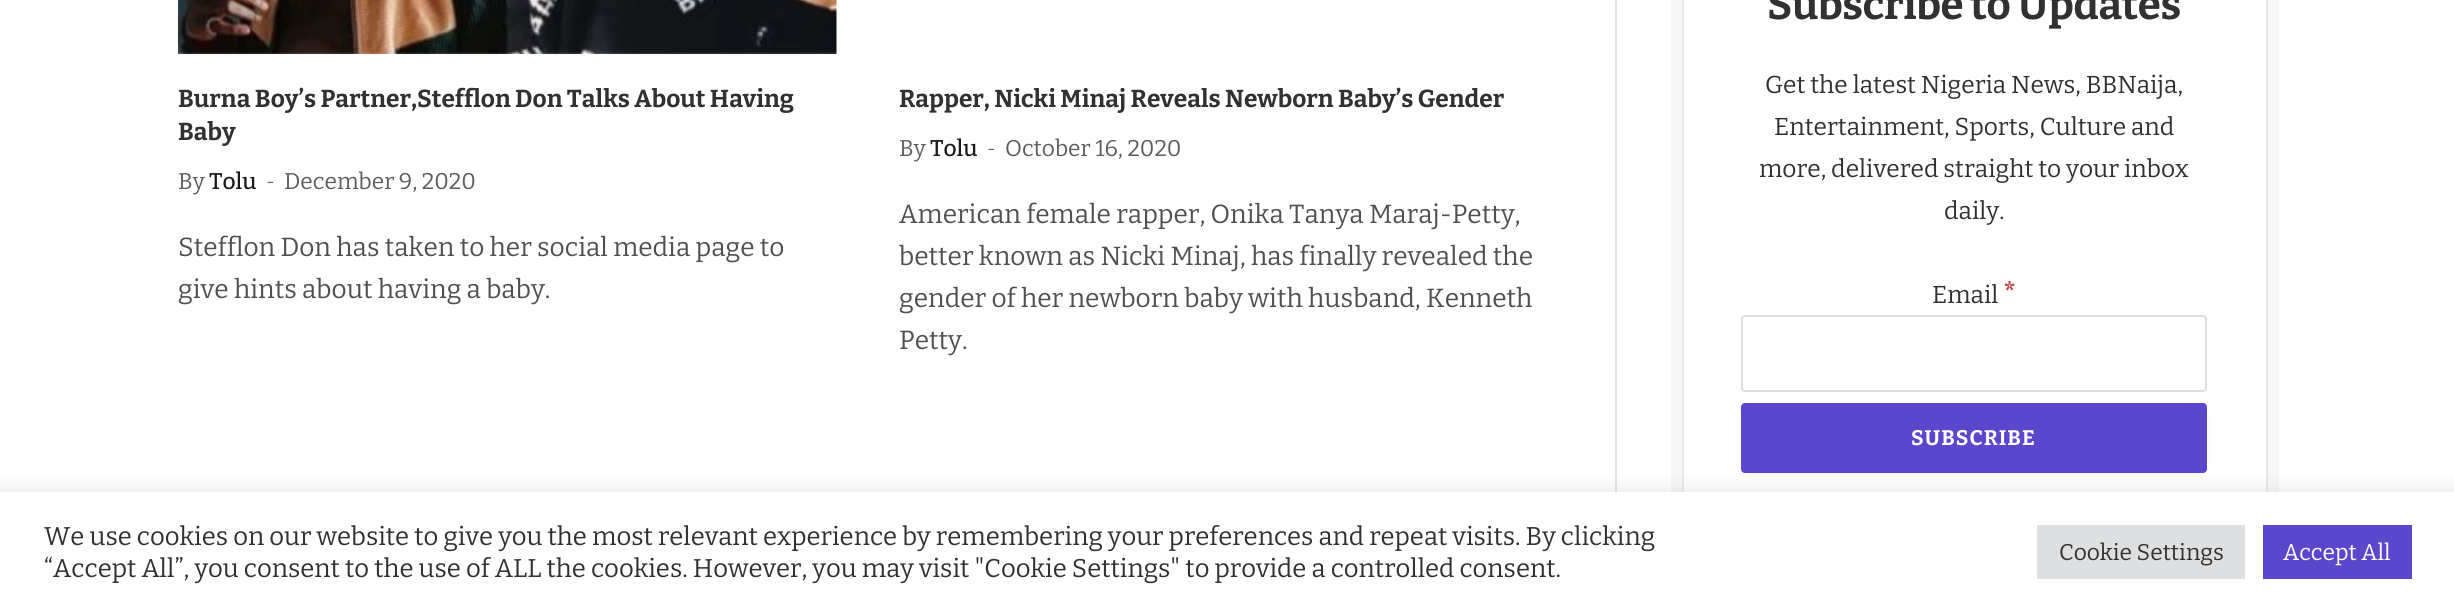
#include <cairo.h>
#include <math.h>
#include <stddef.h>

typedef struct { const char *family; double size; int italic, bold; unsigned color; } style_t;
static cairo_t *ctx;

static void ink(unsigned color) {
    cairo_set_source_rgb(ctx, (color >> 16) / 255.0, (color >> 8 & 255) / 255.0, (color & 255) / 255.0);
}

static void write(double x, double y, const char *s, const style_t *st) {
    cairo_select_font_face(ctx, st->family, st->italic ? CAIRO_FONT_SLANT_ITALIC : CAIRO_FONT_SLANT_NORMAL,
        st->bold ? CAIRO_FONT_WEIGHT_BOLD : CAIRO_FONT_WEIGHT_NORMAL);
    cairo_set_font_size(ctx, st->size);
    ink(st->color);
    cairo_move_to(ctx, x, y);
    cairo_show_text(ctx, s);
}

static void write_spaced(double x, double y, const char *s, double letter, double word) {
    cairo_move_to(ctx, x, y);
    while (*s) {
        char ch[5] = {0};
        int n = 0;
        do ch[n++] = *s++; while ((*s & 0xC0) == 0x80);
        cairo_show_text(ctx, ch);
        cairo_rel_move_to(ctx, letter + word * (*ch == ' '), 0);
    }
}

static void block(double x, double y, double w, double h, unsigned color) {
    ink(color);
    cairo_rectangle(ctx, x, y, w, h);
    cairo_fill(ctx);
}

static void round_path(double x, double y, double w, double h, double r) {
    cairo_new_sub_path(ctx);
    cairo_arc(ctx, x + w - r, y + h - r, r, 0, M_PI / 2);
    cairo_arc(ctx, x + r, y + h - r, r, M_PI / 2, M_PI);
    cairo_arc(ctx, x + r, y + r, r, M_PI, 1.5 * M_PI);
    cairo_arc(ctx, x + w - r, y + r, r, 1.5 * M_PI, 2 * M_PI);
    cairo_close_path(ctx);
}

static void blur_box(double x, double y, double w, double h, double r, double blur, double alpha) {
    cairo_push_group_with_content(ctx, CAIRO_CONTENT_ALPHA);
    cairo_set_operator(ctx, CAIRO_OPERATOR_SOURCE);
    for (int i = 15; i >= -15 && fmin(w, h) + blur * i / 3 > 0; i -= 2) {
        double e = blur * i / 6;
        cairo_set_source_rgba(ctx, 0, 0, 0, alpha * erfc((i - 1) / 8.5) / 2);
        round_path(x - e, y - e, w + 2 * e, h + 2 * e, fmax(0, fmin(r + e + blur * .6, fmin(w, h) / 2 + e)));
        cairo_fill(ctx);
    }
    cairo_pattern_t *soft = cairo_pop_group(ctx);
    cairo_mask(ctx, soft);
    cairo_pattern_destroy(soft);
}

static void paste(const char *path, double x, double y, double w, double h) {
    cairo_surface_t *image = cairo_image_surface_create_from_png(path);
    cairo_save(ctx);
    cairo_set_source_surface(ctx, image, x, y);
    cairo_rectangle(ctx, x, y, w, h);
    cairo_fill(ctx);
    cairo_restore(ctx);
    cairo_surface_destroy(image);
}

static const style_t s1 = {"Bitter", 24.5, 0, 1, 0x313131};
static const style_t s2 = {"Bitter", 22.75, 0, 0, 0x5e5e5e};
static const style_t s3 = {"Bitter Medium", 22.75, 0, 0, 0x191919};
static const style_t s4 = {"Bitter", 19, 0, 0, 0x5e5e5e};
static const style_t s5 = {"Bitter", 26.25, 0, 0, 0x505050};
static const style_t s6 = {"Bitter", 24.5, 0, 0, 0x313131};
static const style_t s7 = {"Bitter", 29, 0, 1, 0xbf4d4d};
static const style_t s8 = {"Bitter", 25.67, 0, 0, 0x313131};
static const style_t s9 = {"Bitter", 22.75, 0, 0, 0x313131};
static const style_t s10 = {"Bitter", 22.75, 0, 0, 0xffffff};

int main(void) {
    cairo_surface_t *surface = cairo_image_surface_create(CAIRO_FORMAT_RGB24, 2454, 611);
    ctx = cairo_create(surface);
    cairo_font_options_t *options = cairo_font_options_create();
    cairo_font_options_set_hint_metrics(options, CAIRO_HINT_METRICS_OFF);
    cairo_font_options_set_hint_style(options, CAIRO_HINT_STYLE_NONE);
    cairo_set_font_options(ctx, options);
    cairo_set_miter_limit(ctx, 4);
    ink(0xffffff);
    cairo_paint(ctx);
    paste("pic1.png", 178, 0, 659, 54);
    write(178, 107, "Burna Boy’s Partner,Stefflon Don Talks About Having", &s1);
    write(178, 140, "Baby", &s1);
    write(178, 189, "By", &s2);
    write(209, 189, "Tolu", &s3);
    write(266, 188, "-", &s4);
    write(284, 189, "December 9, 2020", &s2);
    write(178, 256, "Stefflon Don has taken to her social media page to", &s5);
    write(178, 298, "give hints about having a baby.", &s5);
    write(899, 107, "Rapper, Nicki Minaj Reveals Newborn Baby’s Gender", &s1);
    write(899, 156, "By", &s2);
    write(930, 156, "Tolu", &s3);
    write(987, 155, "-", &s4);
    write(1005, 156, "October 16, 2020", &s2);
    write(899, 223, "American female rapper, Onika Tanya Maraj-Petty,", &s5);
    write(899, 265, "better known as Nicki Minaj, has finally revealed the", &s5);
    write(899, 307, "gender of her newborn baby with husband, Kenneth", &s5);
    write(899, 349, "Petty.", &s5);
    block(1615, 0, 2, 492, 0xe2e2e2);
    cairo_rectangle(ctx, 1676.5, -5.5, 597, 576);
    ink(0xf7f7f7);
    cairo_set_line_width(ctx, 11);
    cairo_stroke(ctx);
    cairo_rectangle(ctx, 1683, -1, 584, 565);
    ink(0xe8e8e8);
    cairo_set_line_width(ctx, 2);
    cairo_stroke(ctx);
    cairo_select_font_face(ctx, "Bitter", CAIRO_FONT_SLANT_NORMAL, CAIRO_FONT_WEIGHT_BOLD);
    cairo_set_font_size(ctx, 42);
    ink(0x313131);
    write_spaced(1767, 19, "Subscribe to Updates", -0.4, 0);
    write(1765, 93, "Get the latest Nigeria News, BBNaija,", &s6);
    write(1774, 135, "Entertainment, Sports, Culture and", &s6);
    write(1759, 177, "more, delivered straight to your inbox", &s6);
    write(1944, 219, "daily.", &s6);
    write(1932, 303, "Email", &s6);
    write(2003, 303, "*", &s7);
    round_path(1742, 316, 464, 75, 3);
    ink(0xdddddd);
    cairo_stroke(ctx);
    ink(0x000000);
    blur_box(1748, 413, 452, 56, 0, 6, 0.16);
    ink(0x5a47cc);
    round_path(1741, 403, 466, 70, 4);
    cairo_fill(ctx);
    cairo_set_font_size(ctx, 21);
    ink(0xffffff);
    write_spaced(1911, 445, "SUBSCRIBE", 1, 0);
    ink(0xacabab);
    blur_box(0, 490, 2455, 121, 0, 9, 0.3);
    block(0, 492, 2454, 119, 0xffffff);
    write(44, 545, "We use cookies on our website to give you the most relevant experience by remembering your preferences and repeat visits. By clicking", &s8);
    write(44, 577, "“Accept All”, you consent to the use of ALL the cookies. However, you may visit \"Cookie Settings\" to provide a controlled consent.", &s8);
    block(2037, 525, 208, 54, 0xdedfe0);
    write(2059, 560, "Cookie Settings", &s9);
    block(2263, 525, 149, 54, 0x5a47cc);
    write(2283, 560, "Accept All", &s10);
    cairo_surface_write_to_png(surface, "screenshot.png");
    cairo_font_options_destroy(options);
    cairo_destroy(ctx);
    cairo_surface_destroy(surface);
    return 0;
}
